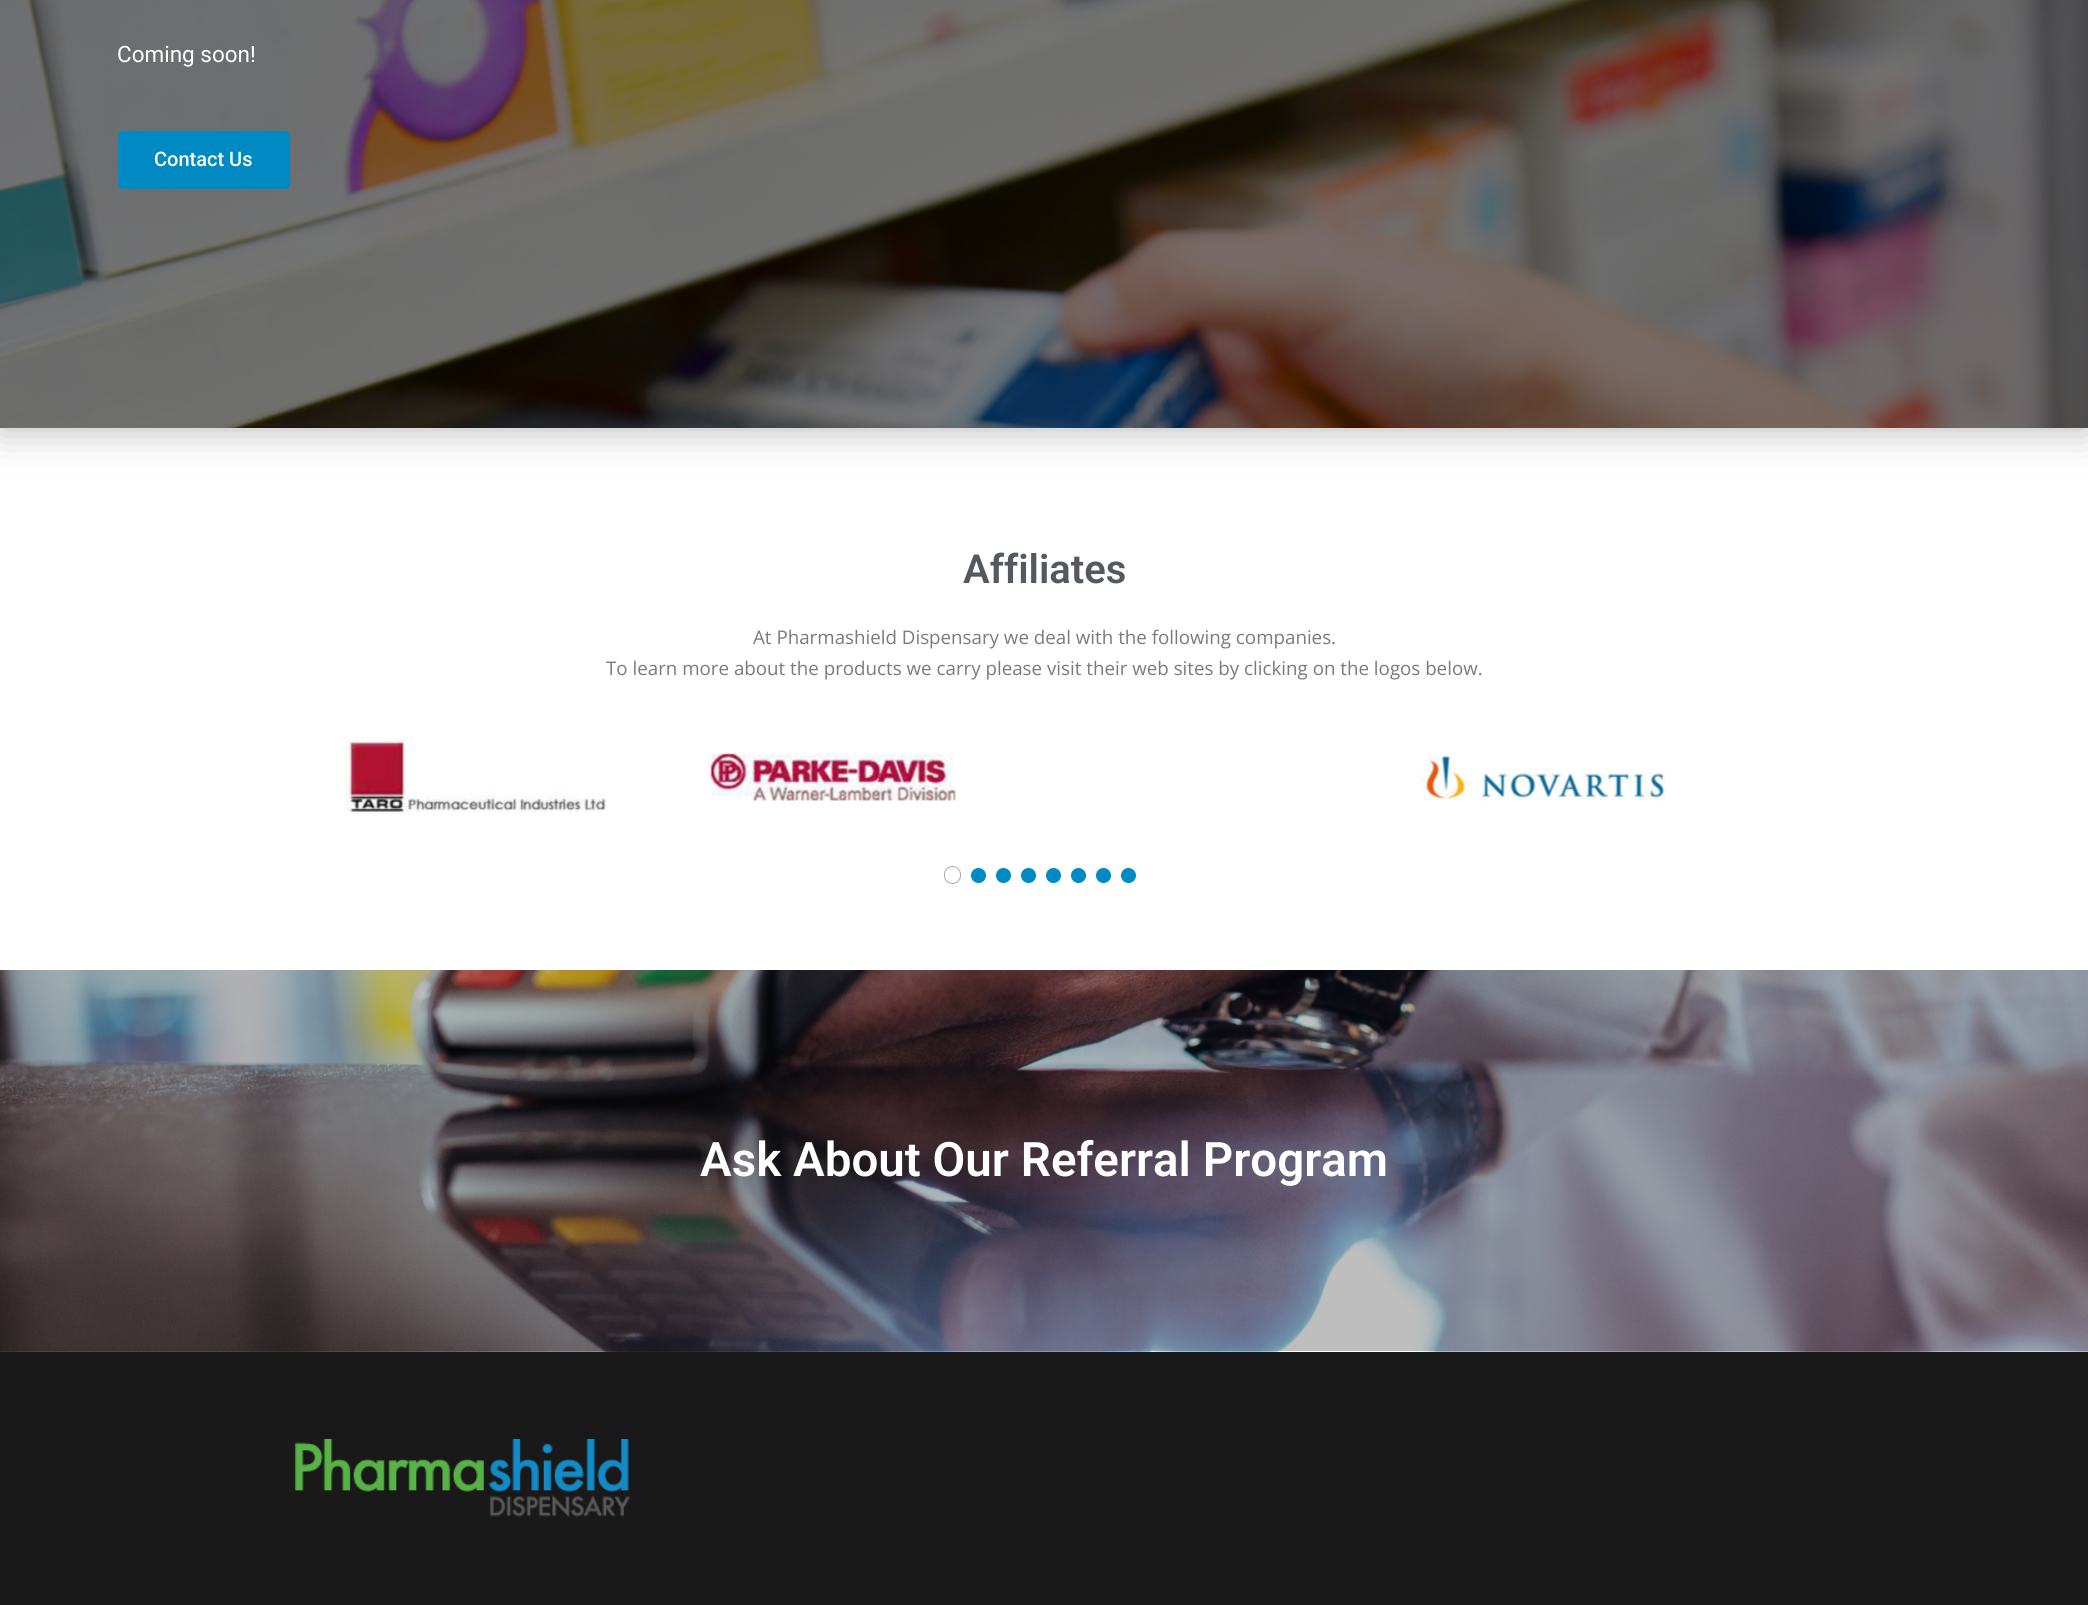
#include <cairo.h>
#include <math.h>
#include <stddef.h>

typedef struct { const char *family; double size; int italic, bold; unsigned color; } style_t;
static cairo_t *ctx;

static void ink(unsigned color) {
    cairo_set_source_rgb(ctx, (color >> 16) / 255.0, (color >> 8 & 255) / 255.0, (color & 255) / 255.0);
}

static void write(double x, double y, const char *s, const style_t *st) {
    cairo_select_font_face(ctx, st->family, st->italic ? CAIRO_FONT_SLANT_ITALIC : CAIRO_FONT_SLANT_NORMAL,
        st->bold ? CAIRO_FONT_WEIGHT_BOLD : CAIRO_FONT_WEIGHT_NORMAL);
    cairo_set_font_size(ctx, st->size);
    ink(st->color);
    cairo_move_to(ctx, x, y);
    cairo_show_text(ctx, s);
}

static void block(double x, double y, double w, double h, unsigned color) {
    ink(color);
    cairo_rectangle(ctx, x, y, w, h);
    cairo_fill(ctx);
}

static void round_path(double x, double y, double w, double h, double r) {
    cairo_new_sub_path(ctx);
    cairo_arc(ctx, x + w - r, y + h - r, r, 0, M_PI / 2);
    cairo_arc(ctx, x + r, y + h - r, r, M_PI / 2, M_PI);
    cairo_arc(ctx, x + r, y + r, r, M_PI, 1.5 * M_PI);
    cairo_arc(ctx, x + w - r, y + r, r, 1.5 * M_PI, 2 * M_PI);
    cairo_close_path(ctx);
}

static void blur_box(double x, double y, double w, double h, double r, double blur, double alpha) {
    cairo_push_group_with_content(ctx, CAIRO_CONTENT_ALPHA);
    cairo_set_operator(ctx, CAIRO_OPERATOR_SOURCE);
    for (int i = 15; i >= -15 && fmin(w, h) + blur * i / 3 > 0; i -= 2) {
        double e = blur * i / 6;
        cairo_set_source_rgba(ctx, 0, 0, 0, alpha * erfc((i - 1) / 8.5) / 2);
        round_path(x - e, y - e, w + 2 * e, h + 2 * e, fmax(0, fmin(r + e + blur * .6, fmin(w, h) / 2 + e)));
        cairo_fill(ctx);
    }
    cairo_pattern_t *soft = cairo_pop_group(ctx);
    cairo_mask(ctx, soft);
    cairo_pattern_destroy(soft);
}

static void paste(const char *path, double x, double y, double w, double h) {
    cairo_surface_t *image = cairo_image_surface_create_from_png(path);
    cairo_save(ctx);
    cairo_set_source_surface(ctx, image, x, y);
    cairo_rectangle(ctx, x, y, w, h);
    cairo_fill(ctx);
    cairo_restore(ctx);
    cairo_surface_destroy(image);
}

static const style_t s1 = {"Roboto", 22.5, 0, 0, 0xffffff};
static const style_t s2 = {"Roboto Medium", 20, 0, 0, 0xffffff};
static const style_t s3 = {"Roboto SemiBold", 40, 0, 0, 0x54595f};
static const style_t s4 = {"Open Sans", 18.75, 0, 0, 0x7a7a7a};
static const style_t s5 = {"Roboto SemiBold", 47.5, 0, 0, 0xffffff};

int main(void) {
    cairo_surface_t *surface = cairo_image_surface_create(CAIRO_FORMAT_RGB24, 2088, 1605);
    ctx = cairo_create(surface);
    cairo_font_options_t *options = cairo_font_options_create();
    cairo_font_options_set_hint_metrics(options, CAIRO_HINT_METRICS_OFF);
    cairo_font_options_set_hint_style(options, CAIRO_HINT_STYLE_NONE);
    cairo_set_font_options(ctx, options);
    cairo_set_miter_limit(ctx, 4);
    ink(0xffffff);
    cairo_paint(ctx);
    ink(0x6b6b6b);
    blur_box(0, -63, 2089, 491, 0, 21, 0.5);
    paste("pic1.png", 0, 0, 2088, 428);
    write(117, 62, "Coming soon!", &s1);
    ink(0x008ac4);
    round_path(118, 131, 172, 58, 5);
    cairo_fill(ctx);
    write(154, 166, "Contact Us", &s2);
    write(963, 583, "Affiliates", &s3);
    write(753, 644, "At Pharmashield Dispensary we deal with the following companies.", &s4);
    write(606, 675, "To learn more about the products we carry please visit their web sites by clicking on the logos below.", &s4);
    paste("pic2.png", 344, 739, 262, 75);
    paste("pic3.png", 710, 753, 246, 48);
    paste("pic4.png", 1420, 755, 246, 46);
    round_path(944.5, 866.5, 16, 17, 8);
    ink(0xaaaaaa);
    cairo_set_line_width(ctx, 1);
    cairo_stroke(ctx);
    ink(0x008ac4);
    cairo_arc(ctx, 978.5, 875.5, 7, 0, 2 * M_PI);
    cairo_fill_preserve(ctx);
    cairo_stroke(ctx);
    cairo_arc(ctx, 1003.5, 875.5, 7, 0, 2 * M_PI);
    cairo_fill_preserve(ctx);
    cairo_stroke(ctx);
    cairo_arc(ctx, 1028.5, 875.5, 7, 0, 2 * M_PI);
    cairo_fill_preserve(ctx);
    cairo_stroke(ctx);
    cairo_arc(ctx, 1053.5, 875.5, 7, 0, 2 * M_PI);
    cairo_fill_preserve(ctx);
    cairo_stroke(ctx);
    cairo_arc(ctx, 1078.5, 875.5, 7, 0, 2 * M_PI);
    cairo_fill_preserve(ctx);
    cairo_stroke(ctx);
    cairo_arc(ctx, 1103.5, 875.5, 7, 0, 2 * M_PI);
    cairo_fill_preserve(ctx);
    cairo_stroke(ctx);
    cairo_arc(ctx, 1128.5, 875.5, 7, 0, 2 * M_PI);
    cairo_fill_preserve(ctx);
    cairo_stroke(ctx);
    paste("pic5.png", 0, 970, 2088, 382);
    write(700, 1176, "Ask About Our Referral Program", &s5);
    block(0, 1352, 2088, 253, 0x191919);
    paste("pic6.png", 294, 1439, 336, 78);
    cairo_surface_write_to_png(surface, "screenshot.png");
    cairo_font_options_destroy(options);
    cairo_destroy(ctx);
    cairo_surface_destroy(surface);
    return 0;
}
